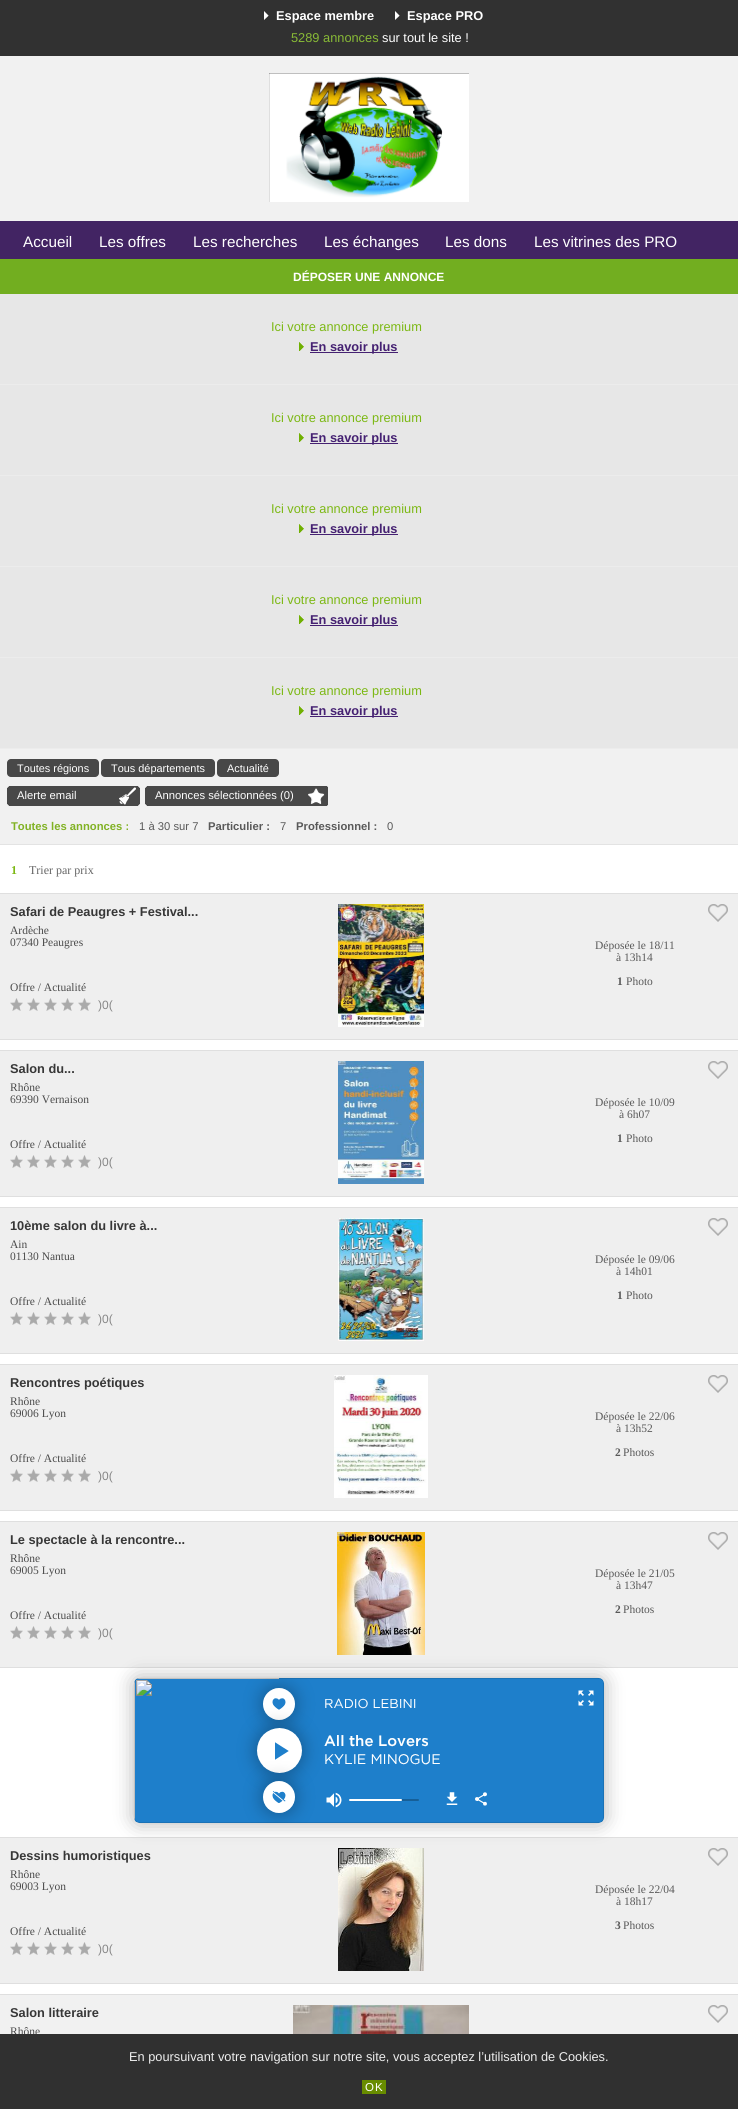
#include <cairo.h>
#include <math.h>
#include <stddef.h>

typedef struct { const char *family; double size; int italic, bold; unsigned color; } style_t;
static cairo_t *ctx;

static void ink(unsigned color) {
    cairo_set_source_rgb(ctx, (color >> 16) / 255.0, (color >> 8 & 255) / 255.0, (color & 255) / 255.0);
}

static void write(double x, double y, const char *s, const style_t *st) {
    cairo_select_font_face(ctx, st->family, st->italic ? CAIRO_FONT_SLANT_ITALIC : CAIRO_FONT_SLANT_NORMAL,
        st->bold ? CAIRO_FONT_WEIGHT_BOLD : CAIRO_FONT_WEIGHT_NORMAL);
    cairo_set_font_size(ctx, st->size);
    ink(st->color);
    cairo_move_to(ctx, x, y);
    cairo_show_text(ctx, s);
}

static void write_spaced(double x, double y, const char *s, double letter, double word) {
    cairo_move_to(ctx, x, y);
    while (*s) {
        char ch[5] = {0};
        int n = 0;
        do ch[n++] = *s++; while ((*s & 0xC0) == 0x80);
        cairo_show_text(ctx, ch);
        cairo_rel_move_to(ctx, letter + word * (*ch == ' '), 0);
    }
}

static void block(double x, double y, double w, double h, unsigned color) {
    ink(color);
    cairo_rectangle(ctx, x, y, w, h);
    cairo_fill(ctx);
}

static void round_path(double x, double y, double w, double h, double r) {
    cairo_new_sub_path(ctx);
    cairo_arc(ctx, x + w - r, y + h - r, r, 0, M_PI / 2);
    cairo_arc(ctx, x + r, y + h - r, r, M_PI / 2, M_PI);
    cairo_arc(ctx, x + r, y + r, r, M_PI, 1.5 * M_PI);
    cairo_arc(ctx, x + w - r, y + r, r, 1.5 * M_PI, 2 * M_PI);
    cairo_close_path(ctx);
}

static void blur_box(double x, double y, double w, double h, double r, double blur, double alpha) {
    cairo_push_group_with_content(ctx, CAIRO_CONTENT_ALPHA);
    cairo_set_operator(ctx, CAIRO_OPERATOR_SOURCE);
    for (int i = 15; i >= -15 && fmin(w, h) + blur * i / 3 > 0; i -= 2) {
        double e = blur * i / 6;
        cairo_set_source_rgba(ctx, 0, 0, 0, alpha * erfc((i - 1) / 8.5) / 2);
        round_path(x - e, y - e, w + 2 * e, h + 2 * e, fmax(0, fmin(r + e + blur * .6, fmin(w, h) / 2 + e)));
        cairo_fill(ctx);
    }
    cairo_pattern_t *soft = cairo_pop_group(ctx);
    cairo_mask(ctx, soft);
    cairo_pattern_destroy(soft);
}

static void paste(const char *path, double x, double y, double w, double h) {
    cairo_surface_t *image = cairo_image_surface_create_from_png(path);
    cairo_save(ctx);
    cairo_set_source_surface(ctx, image, x, y);
    cairo_rectangle(ctx, x, y, w, h);
    cairo_fill(ctx);
    cairo_restore(ctx);
    cairo_surface_destroy(image);
}

static const style_t s1 = {"Liberation Sans", 12.8, 0, 1, 0xffffff};
static const style_t s2 = {"Liberation Sans", 12.8, 0, 0, 0x88ba36};
static const style_t s3 = {"Liberation Sans", 12.8, 0, 0, 0xffffff};
static const style_t s4 = {"Liberation Sans", 15.25, 0, 0, 0xffffff};
static const style_t s5 = {"Liberation Sans", 12, 0, 1, 0xffffff};
static const style_t s6 = {"Liberation Sans", 12.8, 0, 0, 0x7cb814};
static const style_t s7 = {"Liberation Sans", 12.8, 0, 1, 0x452172};
static const style_t s8 = {"Liberation Sans", 10.9, 0, 0, 0xffffff};
static const style_t s9 = {"Liberation Sans", 11.25, 0, 0, 0xffffff};
static const style_t s10 = {"Liberation Sans", 11.25, 0, 1, 0x81b224};
static const style_t s11 = {"Liberation Sans", 11.25, 0, 0, 0x595959};
static const style_t s12 = {"Liberation Sans", 11.25, 0, 1, 0x595959};
static const style_t s13 = {"Liberation Serif", 12, 0, 1, 0x7cb814};
static const style_t s14 = {"Liberation Serif", 12, 0, 0, 0x646464};
static const style_t s15 = {"Liberation Sans", 12.8, 0, 1, 0x373737};
static const style_t s16 = {"Liberation Serif", 11.5, 0, 0, 0x4a4a4a};
static const style_t s17 = {"Liberation Serif", 11.5, 0, 0, 0x595959};
static const style_t s18 = {"Liberation Serif", 11.5, 0, 1, 0x595959};
static const style_t s19 = {"Liberation Sans", 12, 0, 0, 0x878787};
static const style_t s20 = {"Liberation Sans", 12.8, 0, 0, 0xeeeeee};

int main(void) {
    cairo_surface_t *surface = cairo_image_surface_create(CAIRO_FORMAT_RGB24, 738, 2109);
    ctx = cairo_create(surface);
    cairo_font_options_t *options = cairo_font_options_create();
    cairo_font_options_set_hint_metrics(options, CAIRO_HINT_METRICS_OFF);
    cairo_font_options_set_hint_style(options, CAIRO_HINT_STYLE_NONE);
    cairo_set_font_options(ctx, options);
    cairo_set_miter_limit(ctx, 4);
    ink(0xf1f1f1);
    cairo_paint(ctx);
    block(0, 0, 738, 56, 0x313131);
    paste("pic1.png", 264, 11, 5, 9);
    write(276, 20, "Espace membre", &s1);
    paste("pic1.png", 395, 11, 5, 9);
    write(407, 20, "Espace PRO", &s1);
    write(291, 42, "5289 annonces", &s2);
    write(382, 42, "sur tout le site !", &s3);
    paste("pic2.png", 269, 73, 200, 129);
    block(0, 221, 738, 38, 0x422463);
    write(23, 247, "Accueil", &s4);
    write(99, 247, "Les offres", &s4);
    write(193, 247, "Les recherches", &s4);
    write(324, 247, "Les échanges", &s4);
    write(445, 247, "Les dons", &s4);
    write(534, 247, "Les vitrines des PRO", &s4);
    block(0, 259, 738, 35, 0x72ae20);
    write(293, 281, "DÉPOSER UNE ANNONCE", &s5);
    block(0, 294, 738, 90, 0xe7e7e7);
    block(0, 384, 738, 1, 0xececec);
    write(271, 331, "Ici votre annonce premium", &s6);
    paste("pic3.png", 299, 342, 5, 9);
    block(310, 352, 88, 1, 0x452172);
    write(310, 351, "En savoir plus", &s7);
    block(0, 385, 738, 90, 0xe7e7e7);
    block(0, 475, 738, 1, 0xececec);
    write(271, 422, "Ici votre annonce premium", &s6);
    paste("pic3.png", 299, 433, 5, 9);
    block(310, 443, 88, 1, 0x452172);
    write(310, 442, "En savoir plus", &s7);
    block(0, 476, 738, 90, 0xe7e7e7);
    block(0, 566, 738, 1, 0xececec);
    write(271, 513, "Ici votre annonce premium", &s6);
    paste("pic3.png", 299, 524, 5, 9);
    block(310, 534, 88, 1, 0x452172);
    write(310, 533, "En savoir plus", &s7);
    block(0, 567, 738, 90, 0xe7e7e7);
    block(0, 657, 738, 1, 0xececec);
    write(271, 604, "Ici votre annonce premium", &s6);
    paste("pic3.png", 299, 615, 5, 9);
    block(310, 625, 88, 1, 0x452172);
    write(310, 624, "En savoir plus", &s7);
    block(0, 658, 738, 90, 0xe7e7e7);
    block(0, 748, 738, 1, 0xececec);
    write(271, 695, "Ici votre annonce premium", &s6);
    paste("pic3.png", 299, 706, 5, 9);
    block(310, 716, 88, 1, 0x452172);
    write(310, 715, "En savoir plus", &s7);
    ink(0x484848);
    round_path(7, 759, 92, 18, 4);
    cairo_fill(ctx);
    write(17, 772, "Toutes régions", &s8);
    ink(0x484848);
    round_path(101, 759, 114, 18, 4);
    cairo_fill(ctx);
    write(111, 772, "Tous départements", &s8);
    ink(0x484848);
    round_path(217, 759, 62, 18, 4);
    cairo_fill(ctx);
    write(227, 772, "Actualité", &s8);
    paste("pic4.png", 7, 786, 133, 20);
    write(17, 799, "Alerte email", &s9);
    paste("pic5.png", 145, 786, 183, 20);
    write(155, 799, "Annonces sélectionnées (0)", &s9);
    write(11, 830, "Toutes les annonces :", &s10);
    write(139, 830, "1 à 30 sur 7", &s11);
    write(208, 830, "Particulier :", &s12);
    write(280, 830, "7", &s11);
    write(296, 830, "Professionnel :", &s12);
    write(387, 830, "0", &s11);
    block(0, 845, 738, 1149, 0xffffff);
    block(0, 844, 738, 1, 0xe3e3e3);
    write(11, 874, "1", &s13);
    write(29, 874, "Trier par prix", &s14);
    block(0, 894, 738, 145, 0xefefef);
    block(0, 893, 738, 1, 0xdfdfdf);
    block(0, 1039, 738, 1, 0xdfdfdf);
    write(10, 916, "Safari de Peaugres + Festival...", &s15);
    paste("pic6.png", 338, 904, 86, 123);
    write(10, 934, "Ardèche", &s16);
    write(10, 946, "07340 Peaugres", &s16);
    write(595, 949, "Déposée le 18/11", &s17);
    write(616, 961, "à 13h14", &s17);
    write(617, 985, "1", &s18);
    write(626, 985, "Photo", &s17);
    write(10, 991, "Offre / Actualité", &s16);
    paste("pic7.png", 10, 998, 13, 13);
    paste("pic7.png", 27, 998, 13, 13);
    paste("pic8.png", 44, 998, 13, 13);
    paste("pic8.png", 61, 998, 13, 13);
    paste("pic8.png", 78, 998, 13, 13);
    write(98, 1009, ")0(", &s19);
    paste("pic9.png", 708, 904, 20, 18);
    block(0, 1051, 738, 145, 0xefefef);
    block(0, 1050, 738, 1, 0xdfdfdf);
    block(0, 1196, 738, 1, 0xdfdfdf);
    write(10, 1073, "Salon du...", &s15);
    paste("pic10.png", 338, 1061, 86, 123);
    write(10, 1091, "Rhône", &s16);
    write(10, 1103, "69390 Vernaison", &s16);
    write(595, 1106, "Déposée le 10/09", &s17);
    write(619, 1118, "à 6h07", &s17);
    write(617, 1142, "1", &s18);
    write(626, 1142, "Photo", &s17);
    write(10, 1148, "Offre / Actualité", &s16);
    paste("pic7.png", 10, 1155, 13, 13);
    paste("pic7.png", 27, 1155, 13, 13);
    paste("pic8.png", 44, 1155, 13, 13);
    paste("pic8.png", 61, 1155, 13, 13);
    paste("pic8.png", 78, 1155, 13, 13);
    write(98, 1166, ")0(", &s19);
    paste("pic9.png", 708, 1061, 20, 18);
    block(0, 1208, 738, 145, 0xefefef);
    block(0, 1207, 738, 1, 0xdfdfdf);
    block(0, 1353, 738, 1, 0xdfdfdf);
    write(10, 1230, "10ème salon du livre à...", &s15);
    paste("pic11.png", 338, 1218, 86, 123);
    write(10, 1248, "Ain", &s16);
    write(10, 1260, "01130 Nantua", &s16);
    write(595, 1263, "Déposée le 09/06", &s17);
    write(616, 1275, "à 14h01", &s17);
    write(617, 1299, "1", &s18);
    write(626, 1299, "Photo", &s17);
    write(10, 1305, "Offre / Actualité", &s16);
    paste("pic7.png", 10, 1312, 13, 13);
    paste("pic7.png", 27, 1312, 13, 13);
    paste("pic8.png", 44, 1312, 13, 13);
    paste("pic8.png", 61, 1312, 13, 13);
    paste("pic8.png", 78, 1312, 13, 13);
    write(98, 1323, ")0(", &s19);
    paste("pic9.png", 708, 1218, 20, 18);
    block(0, 1365, 738, 145, 0xefefef);
    block(0, 1364, 738, 1, 0xdfdfdf);
    block(0, 1510, 738, 1, 0xdfdfdf);
    write(10, 1387, "Rencontres poétiques", &s15);
    paste("pic12.png", 334, 1375, 94, 123);
    write(10, 1405, "Rhône", &s16);
    write(10, 1417, "69006 Lyon", &s16);
    write(595, 1420, "Déposée le 22/06", &s17);
    write(616, 1432, "à 13h52", &s17);
    write(615, 1456, "2", &s18);
    write(623, 1456, "Photos", &s17);
    write(10, 1462, "Offre / Actualité", &s16);
    paste("pic7.png", 10, 1469, 13, 13);
    paste("pic7.png", 27, 1469, 13, 13);
    paste("pic8.png", 44, 1469, 13, 13);
    paste("pic8.png", 61, 1469, 13, 13);
    paste("pic8.png", 78, 1469, 13, 13);
    write(98, 1480, ")0(", &s19);
    paste("pic9.png", 708, 1375, 20, 18);
    block(0, 1522, 738, 145, 0xefefef);
    block(0, 1521, 738, 1, 0xdfdfdf);
    block(0, 1667, 738, 1, 0xdfdfdf);
    write(10, 1544, "Le spectacle à la rencontre...", &s15);
    block(0, 1838, 738, 145, 0xefefef);
    block(0, 1837, 738, 1, 0xdfdfdf);
    ink(0x000000);
    blur_box(134, 1678, 470, 145, 5, 10, 0.3);
    paste("pic13.png", 337, 1532, 88, 123);
    write(10, 1562, "Rhône", &s16);
    write(10, 1574, "69005 Lyon", &s16);
    write(595, 1577, "Déposée le 21/05", &s17);
    write(616, 1589, "à 13h47", &s17);
    write(615, 1613, "2", &s18);
    write(623, 1613, "Photos", &s17);
    write(10, 1619, "Offre / Actualité", &s16);
    paste("pic7.png", 10, 1626, 13, 13);
    paste("pic7.png", 27, 1626, 13, 13);
    paste("pic8.png", 44, 1626, 13, 13);
    paste("pic8.png", 61, 1626, 13, 13);
    paste("pic8.png", 78, 1626, 13, 13);
    write(98, 1637, ")0(", &s19);
    paste("pic9.png", 708, 1532, 20, 18);
    paste("pic14.png", 134, 1678, 470, 145);
    block(0, 1983, 738, 1, 0xdfdfdf);
    write(10, 1860, "Dessins humoristiques", &s15);
    paste("pic15.png", 338, 1848, 86, 123);
    write(10, 1878, "Rhône", &s16);
    write(10, 1890, "69003 Lyon", &s16);
    write(595, 1893, "Déposée le 22/04", &s17);
    write(616, 1905, "à 18h17", &s17);
    write(615, 1929, "3", &s18);
    write(623, 1929, "Photos", &s17);
    write(10, 1935, "Offre / Actualité", &s16);
    paste("pic7.png", 10, 1942, 13, 13);
    paste("pic7.png", 27, 1942, 13, 13);
    paste("pic8.png", 44, 1942, 13, 13);
    paste("pic8.png", 61, 1942, 13, 13);
    paste("pic8.png", 78, 1942, 13, 13);
    write(98, 1953, ")0(", &s19);
    paste("pic9.png", 708, 1848, 20, 18);
    block(0, 1994, 738, 1, 0xdfdfdf);
    write(10, 2017, "Salon litteraire", &s15);
    paste("pic16.png", 293, 2005, 176, 29);
    write(10, 2035, "Rhône", &s16);
    paste("pic9.png", 708, 2005, 20, 18);
    block(0, 2034, 738, 75, 0x303030);
    write(129, 2061, "En poursuivant votre navigation sur notre site, vous acceptez l’utilisation de Cookies.", &s20);
    block(362, 2080, 24, 14, 0x688c00);
    cairo_set_font_size(ctx, 11.5);
    ink(0xffffff);
    write_spaced(365, 2091, "OK", 1, 0);
    cairo_surface_write_to_png(surface, "screenshot.png");
    cairo_font_options_destroy(options);
    cairo_destroy(ctx);
    cairo_surface_destroy(surface);
    return 0;
}
